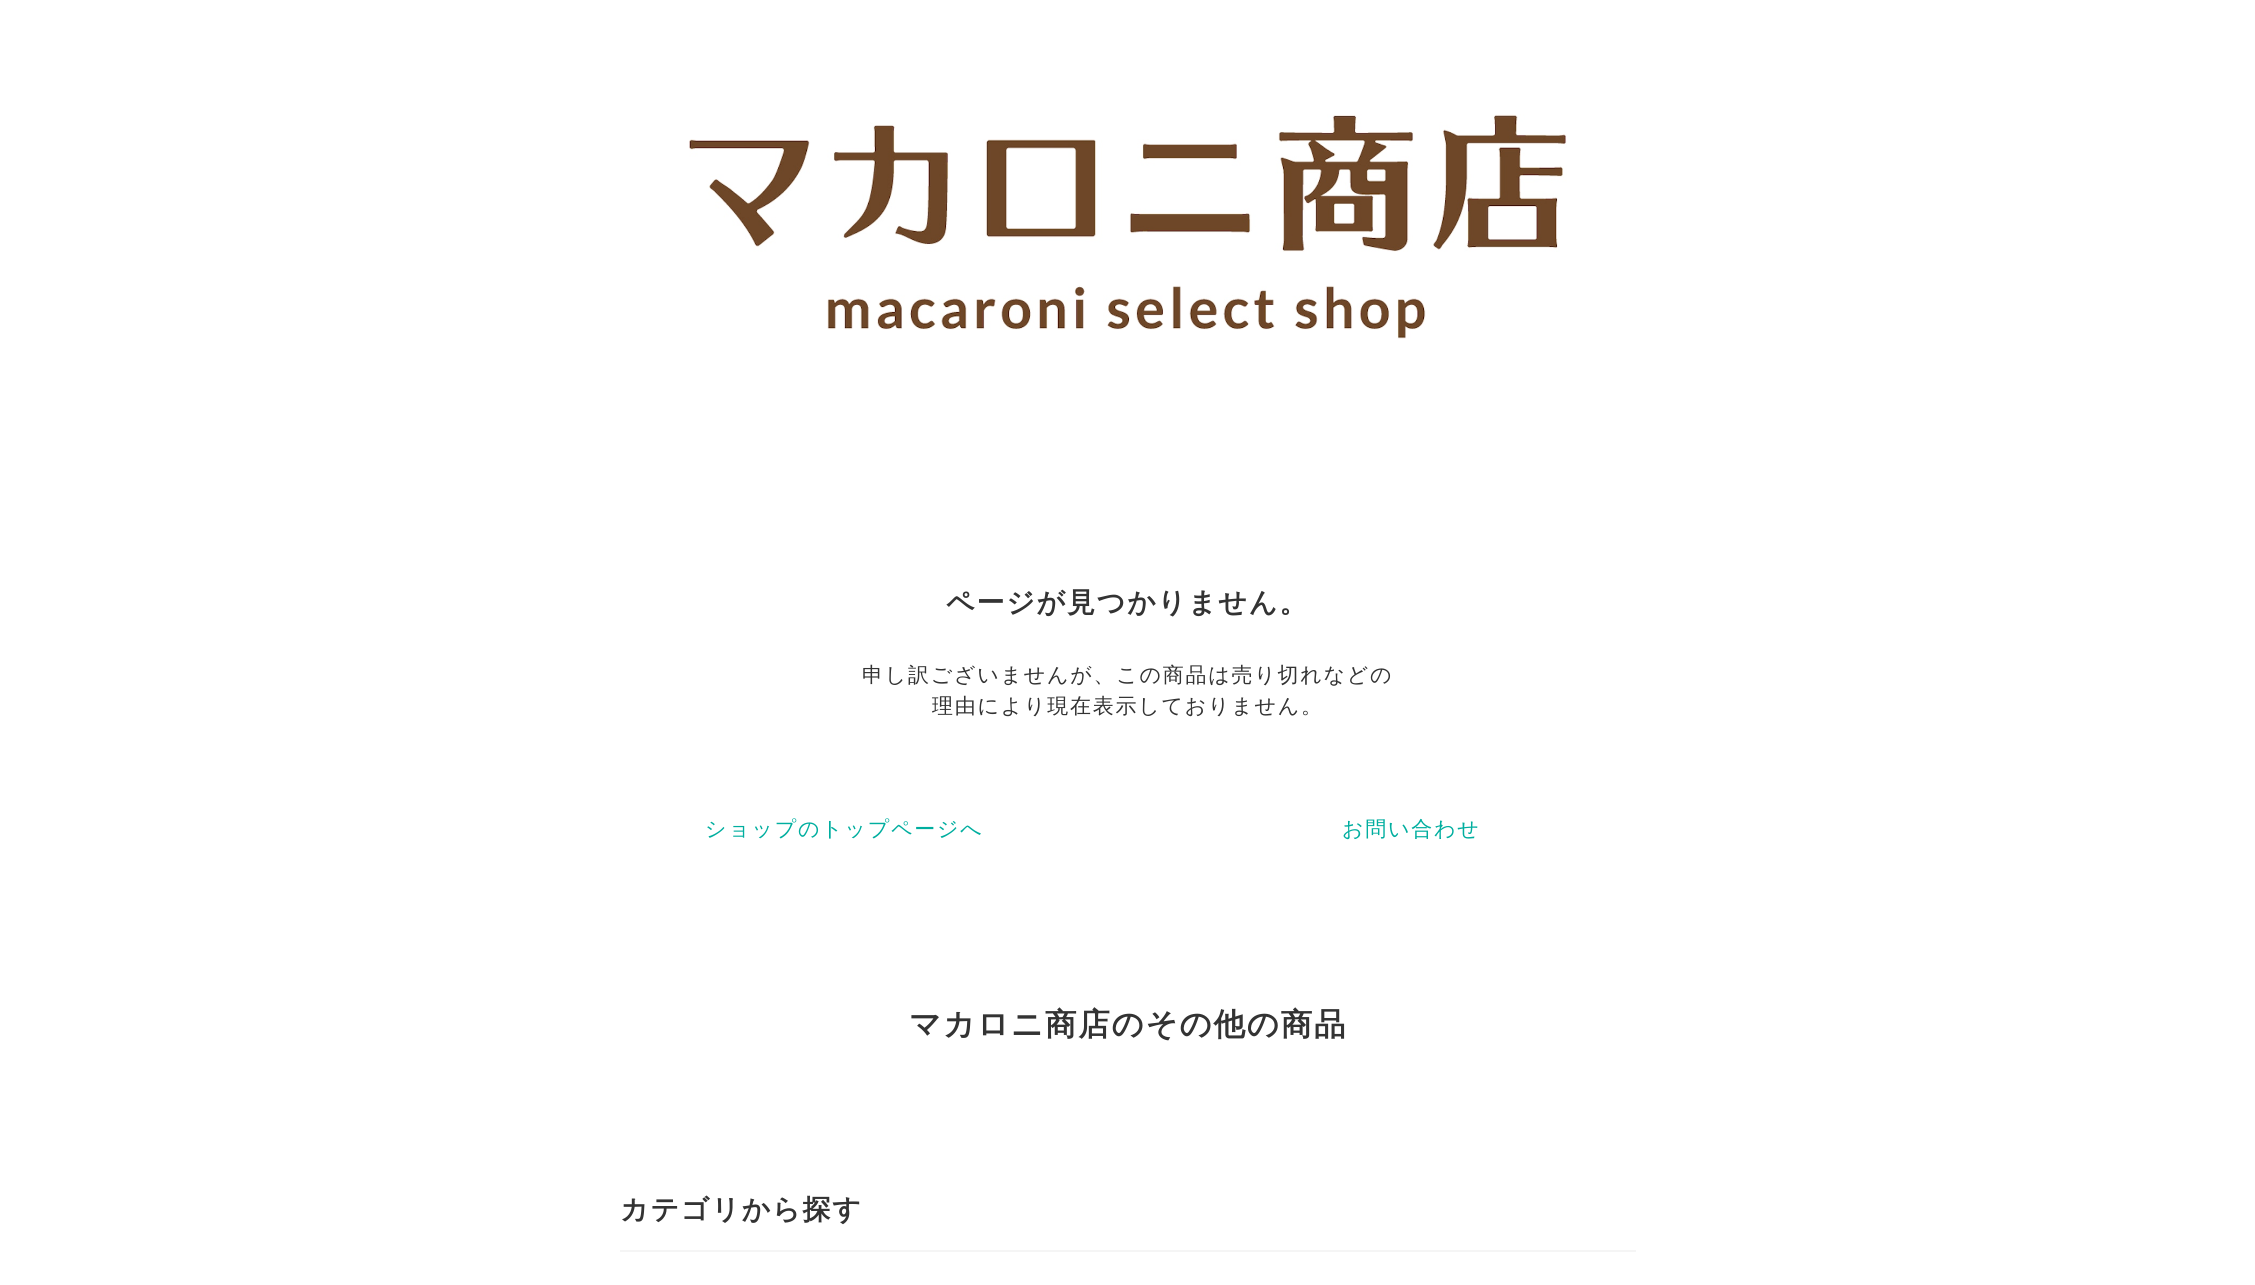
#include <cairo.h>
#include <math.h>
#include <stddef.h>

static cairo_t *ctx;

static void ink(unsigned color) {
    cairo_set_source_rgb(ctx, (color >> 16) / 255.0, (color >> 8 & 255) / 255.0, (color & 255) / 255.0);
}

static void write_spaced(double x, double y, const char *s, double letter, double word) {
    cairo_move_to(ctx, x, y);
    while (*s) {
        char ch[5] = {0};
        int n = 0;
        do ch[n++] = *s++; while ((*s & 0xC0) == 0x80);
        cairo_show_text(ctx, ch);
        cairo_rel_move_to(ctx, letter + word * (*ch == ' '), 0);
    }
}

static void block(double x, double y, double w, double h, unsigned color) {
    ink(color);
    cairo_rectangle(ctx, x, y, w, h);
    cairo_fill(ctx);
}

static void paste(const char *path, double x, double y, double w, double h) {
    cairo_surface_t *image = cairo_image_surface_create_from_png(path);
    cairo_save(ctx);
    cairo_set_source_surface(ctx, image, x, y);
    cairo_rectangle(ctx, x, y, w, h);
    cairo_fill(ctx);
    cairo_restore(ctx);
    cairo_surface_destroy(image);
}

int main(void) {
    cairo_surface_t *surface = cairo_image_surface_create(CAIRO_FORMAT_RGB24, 2255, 1285);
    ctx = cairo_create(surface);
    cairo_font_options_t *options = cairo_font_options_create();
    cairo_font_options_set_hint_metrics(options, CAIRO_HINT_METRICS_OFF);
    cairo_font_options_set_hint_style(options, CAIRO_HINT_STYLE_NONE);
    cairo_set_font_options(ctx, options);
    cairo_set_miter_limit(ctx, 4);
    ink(0xffffff);
    cairo_paint(ctx);
    paste("pic1.png", 689, 114, 878, 225);
    cairo_select_font_face(ctx, "WenQuanYi Zen Hei", CAIRO_FONT_SLANT_NORMAL, CAIRO_FONT_WEIGHT_BOLD);
    cairo_set_font_size(ctx, 28);
    ink(0x333333);
    write_spaced(946, 612, "ページが見つかりません。", 1.75, 0);
    cairo_select_font_face(ctx, "WenQuanYi Zen Hei Medium", CAIRO_FONT_SLANT_NORMAL, CAIRO_FONT_WEIGHT_NORMAL);
    cairo_set_font_size(ctx, 21);
    write_spaced(862, 682, "申し訳ございませんが、この商品は売り切れなどの", 1.75, 0);
    write_spaced(932, 713, "理由により現在表示しておりません。", 1.75, 0);
    ink(0x00ae9f);
    write_spaced(705, 836, "ショップのトップページへ", 1.75, 0);
    write_spaced(1342, 836, "お問い合わせ", 1.75, 0);
    cairo_select_font_face(ctx, "WenQuanYi Zen Hei", CAIRO_FONT_SLANT_NORMAL, CAIRO_FONT_WEIGHT_BOLD);
    cairo_set_font_size(ctx, 31.5);
    ink(0x333333);
    write_spaced(909, 1035, "マカロニ商店のその他の商品", 1.75, 0);
    block(620, 1250, 1016, 2, 0xf5f5f5);
    cairo_set_font_size(ctx, 28);
    ink(0x333333);
    write_spaced(620, 1219, "カテゴリから探す", 1.75, 0);
    cairo_surface_write_to_png(surface, "screenshot.png");
    cairo_font_options_destroy(options);
    cairo_destroy(ctx);
    cairo_surface_destroy(surface);
    return 0;
}
